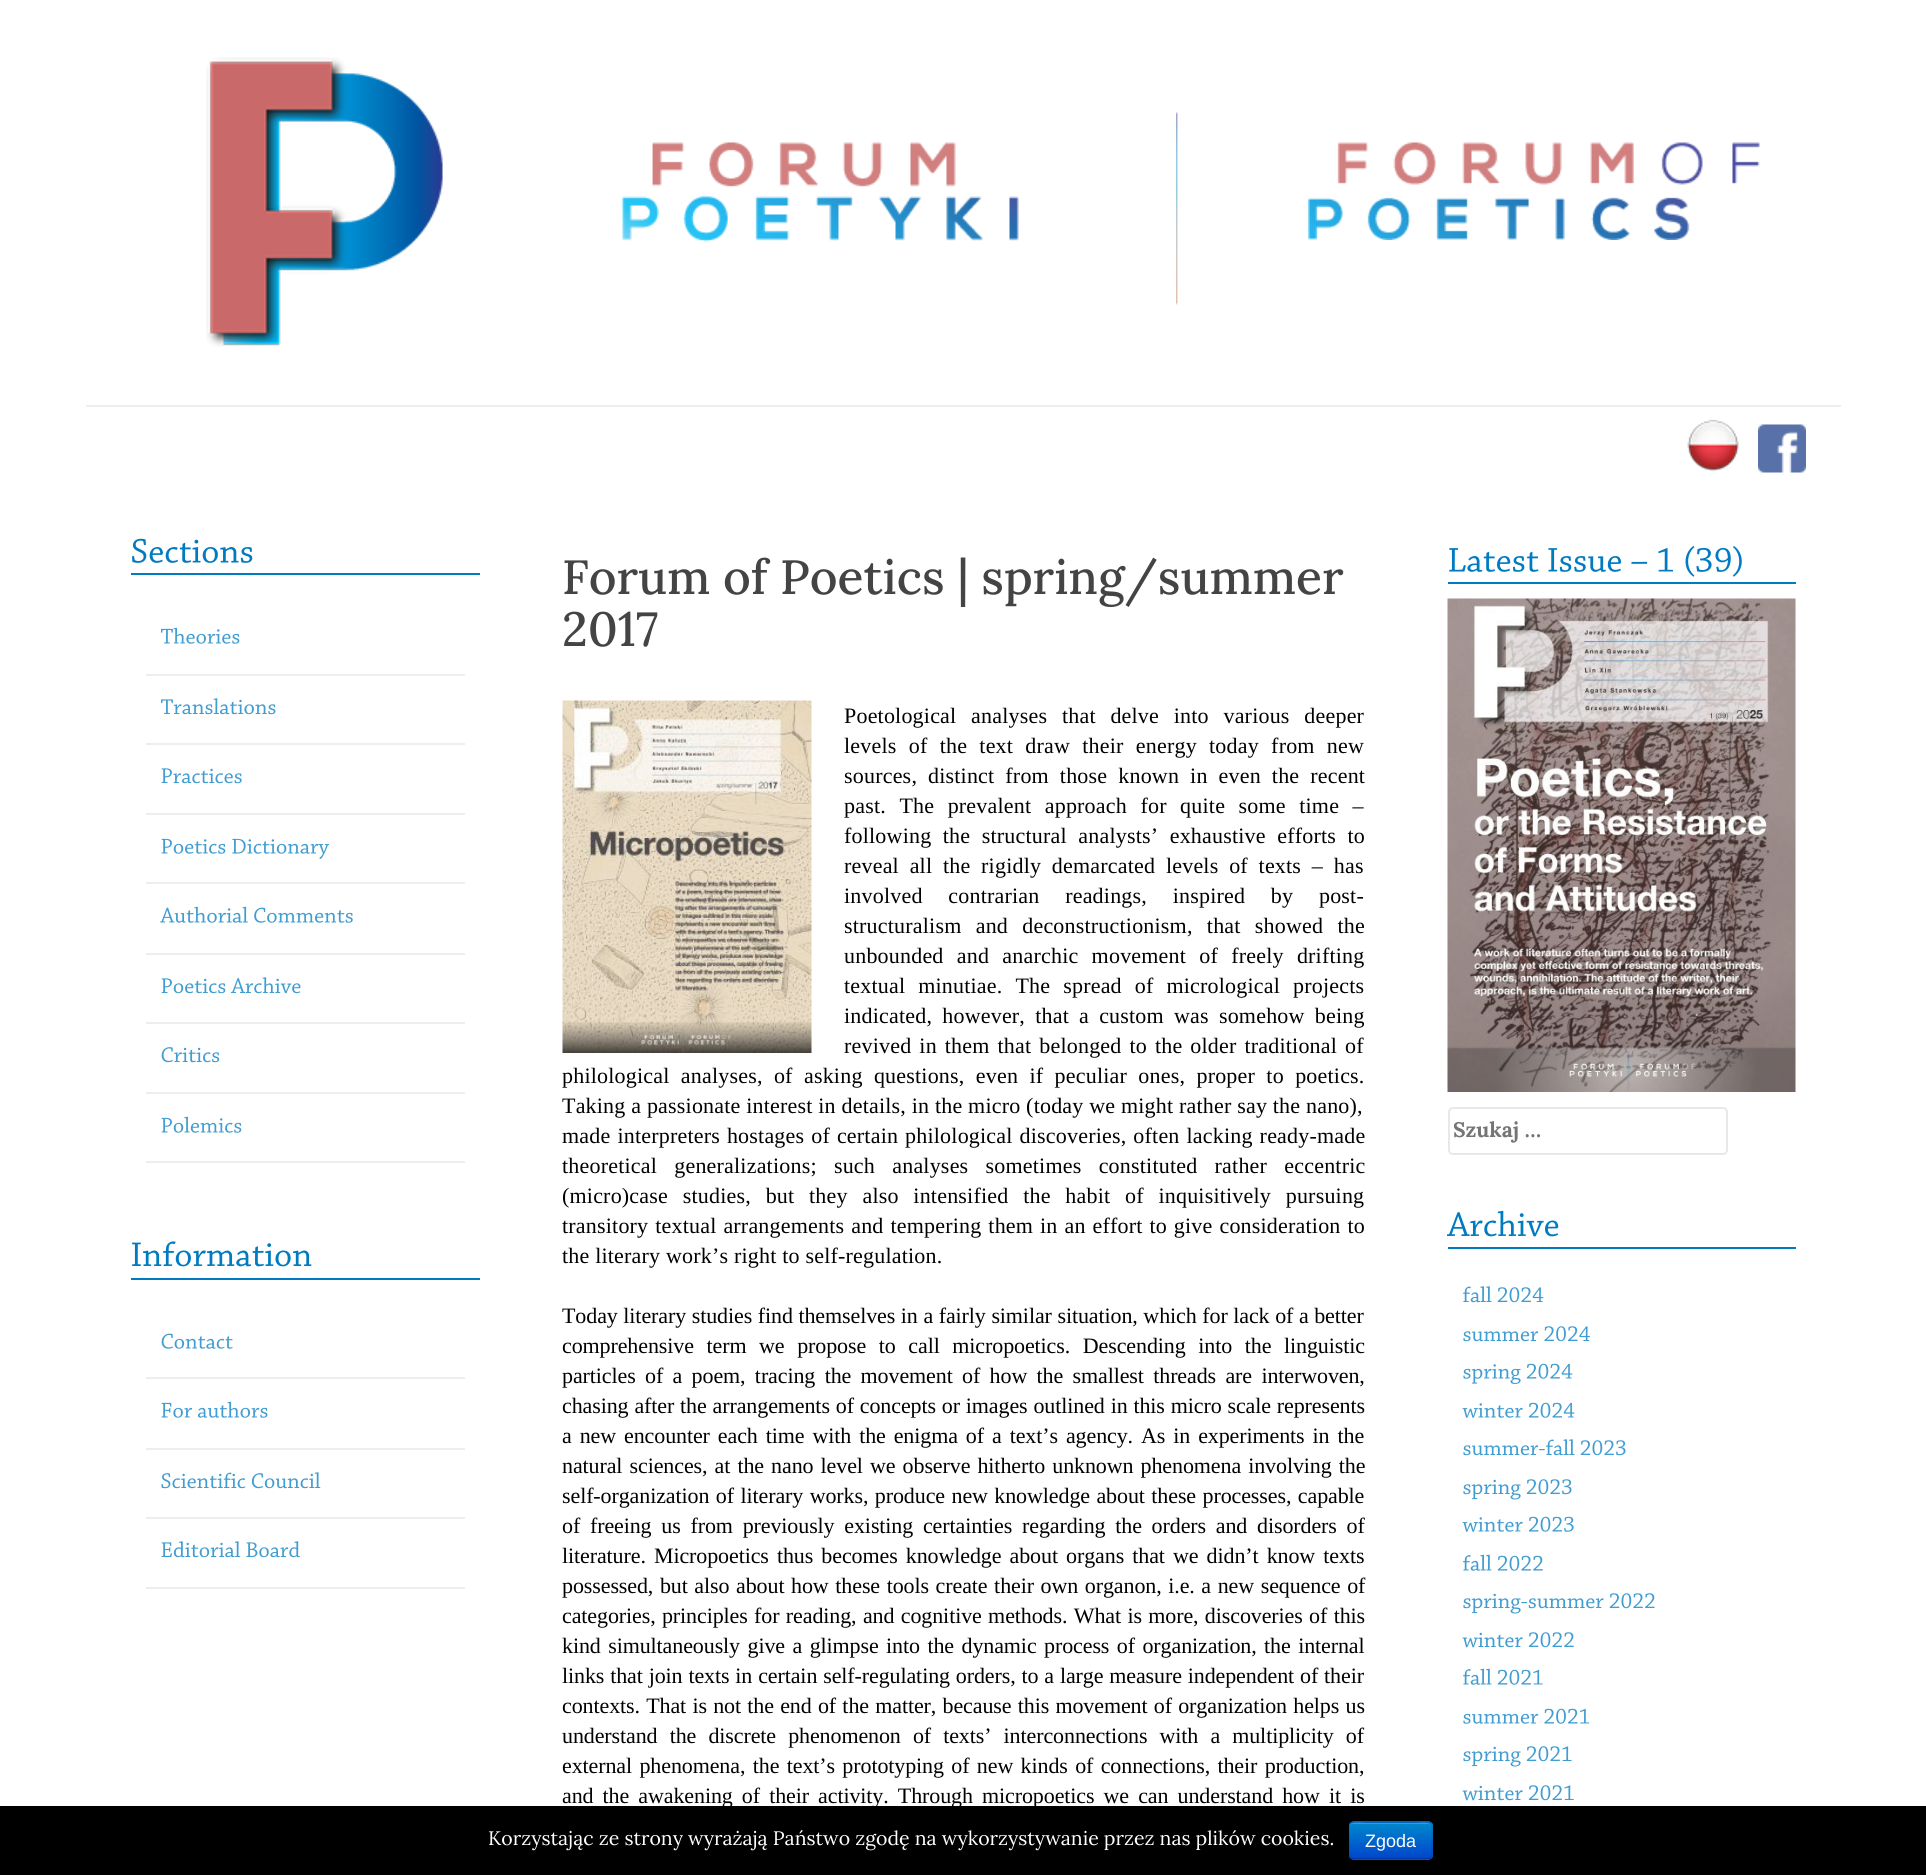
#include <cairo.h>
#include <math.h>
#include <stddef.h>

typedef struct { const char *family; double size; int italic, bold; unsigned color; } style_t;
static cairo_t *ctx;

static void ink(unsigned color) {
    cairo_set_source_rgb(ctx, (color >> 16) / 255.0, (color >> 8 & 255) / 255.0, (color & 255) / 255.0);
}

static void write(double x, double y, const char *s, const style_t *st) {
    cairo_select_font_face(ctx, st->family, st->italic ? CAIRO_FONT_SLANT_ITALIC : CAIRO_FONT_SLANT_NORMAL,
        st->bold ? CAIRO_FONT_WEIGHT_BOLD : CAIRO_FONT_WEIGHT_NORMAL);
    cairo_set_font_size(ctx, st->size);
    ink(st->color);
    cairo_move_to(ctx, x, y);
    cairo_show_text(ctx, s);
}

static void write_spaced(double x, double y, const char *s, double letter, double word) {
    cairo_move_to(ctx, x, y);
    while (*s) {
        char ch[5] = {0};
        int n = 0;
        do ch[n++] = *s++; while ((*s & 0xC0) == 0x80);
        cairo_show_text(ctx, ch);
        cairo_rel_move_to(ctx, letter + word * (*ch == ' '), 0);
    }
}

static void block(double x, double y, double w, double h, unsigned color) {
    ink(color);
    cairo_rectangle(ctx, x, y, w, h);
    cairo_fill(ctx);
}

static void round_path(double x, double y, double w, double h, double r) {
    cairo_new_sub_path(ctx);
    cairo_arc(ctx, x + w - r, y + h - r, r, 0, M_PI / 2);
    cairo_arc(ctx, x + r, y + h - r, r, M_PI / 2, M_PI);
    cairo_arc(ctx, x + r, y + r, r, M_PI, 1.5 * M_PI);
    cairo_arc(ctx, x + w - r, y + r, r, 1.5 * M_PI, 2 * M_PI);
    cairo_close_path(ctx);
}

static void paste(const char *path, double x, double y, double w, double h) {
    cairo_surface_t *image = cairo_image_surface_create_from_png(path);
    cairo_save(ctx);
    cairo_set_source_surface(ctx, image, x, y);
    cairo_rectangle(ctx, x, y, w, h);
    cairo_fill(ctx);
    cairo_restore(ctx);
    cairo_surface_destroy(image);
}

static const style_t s1 = {"Lora Medium", 48, 0, 0, 0x444444};
static const style_t s2 = {"Lora", 21, 0, 1, 0x757575};
static const style_t s3 = {"Lora", 19.5, 0, 0, 0xffffff};
static const style_t s4 = {"Liberation Sans", 18, 0, 0, 0xffffff};

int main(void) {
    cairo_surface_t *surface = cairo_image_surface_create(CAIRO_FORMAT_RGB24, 1926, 1875);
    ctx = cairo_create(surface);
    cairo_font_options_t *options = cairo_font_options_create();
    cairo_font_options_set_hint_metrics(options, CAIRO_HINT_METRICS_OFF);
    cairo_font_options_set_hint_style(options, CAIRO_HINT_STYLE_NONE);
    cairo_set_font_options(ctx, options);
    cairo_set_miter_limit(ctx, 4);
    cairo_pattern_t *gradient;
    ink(0xffffff);
    cairo_paint(ctx);
    block(86, 405, 1755, 2, 0xeeeeee);
    paste("pic1.png", 206, 57, 237, 290);
    paste("pic2.png", 622, 142, 397, 100);
    paste("pic3.png", 1176, 112, 2, 193);
    paste("pic4.png", 1308, 142, 452, 98);
    paste("pic5.png", 1687, 419, 52, 53);
    paste("pic6.png", 1758, 424, 48, 49);
    block(131, 573, 349, 2, 0x007bc1);
    paste("pic7.png", 132, 538, 121, 25);
    block(146, 674, 319, 2, 0xeeeeee);
    paste("pic8.png", 160, 627, 80, 17);
    block(146, 743, 319, 2, 0xeeeeee);
    paste("pic9.png", 160, 698, 116, 17);
    block(146, 813, 319, 2, 0xeeeeee);
    paste("pic10.png", 161, 768, 81, 16);
    block(146, 882, 319, 2, 0xeeeeee);
    paste("pic11.png", 161, 838, 168, 21);
    block(146, 953, 319, 2, 0xeeeeee);
    paste("pic12.png", 160, 906, 193, 17);
    block(146, 1022, 319, 2, 0xeeeeee);
    paste("pic13.png", 161, 977, 140, 17);
    block(146, 1092, 319, 2, 0xeeeeee);
    paste("pic14.png", 161, 1047, 59, 16);
    block(146, 1161, 319, 2, 0xeeeeee);
    paste("pic15.png", 161, 1116, 81, 17);
    block(131, 1278, 349, 2, 0x007bc1);
    paste("pic16.png", 132, 1241, 180, 26);
    block(146, 1377, 319, 2, 0xeeeeee);
    paste("pic17.png", 161, 1333, 72, 16);
    block(146, 1448, 319, 2, 0xeeeeee);
    paste("pic18.png", 161, 1401, 107, 17);
    block(146, 1517, 319, 2, 0xeeeeee);
    paste("pic19.png", 161, 1472, 160, 17);
    block(146, 1587, 319, 2, 0xeeeeee);
    paste("pic20.png", 161, 1541, 139, 17);
    write(562, 594, "Forum of Poetics | spring/summer", &s1);
    write(562, 646, "2017", &s1);
    paste("pic21.png", 562, 700, 250, 353);
    cairo_select_font_face(ctx, "Liberation Serif", CAIRO_FONT_SLANT_NORMAL, CAIRO_FONT_WEIGHT_NORMAL);
    cairo_set_font_size(ctx, 22);
    ink(0x000000);
    write_spaced(844, 723, "Poetological analyses that delve into various deeper", 0.2, 9);
    write_spaced(844, 753, "levels of the text draw their energy today from new", 0.2, 6.5);
    write_spaced(844, 783, "sources, distinct from those known in even the recent", 0.2, 5.25);
    write_spaced(844, 813, "past. The prevalent approach for quite some time –", 0.2, 7.75);
    write_spaced(844, 843, "following the structural analysts’ exhaustive efforts to", 0.2, 5.75);
    write_spaced(844, 873, "reveal all the rigidly demarcated levels of texts – has", 0.2, 5);
    write_spaced(844, 903, "involved contrarian readings, inspired by post-", 0.2, 20);
    write_spaced(844, 933, "structuralism and deconstructionism, that showed the", 0.2, 8.5);
    write_spaced(844, 963, "unbounded and anarchic movement of freely drifting", 0.2, 7.5);
    write_spaced(844, 993, "textual minutiae. The spread of micrological projects", 0.2, 7.25);
    write_spaced(844, 1023, "indicated, however, that a custom was somehow being", 0.2, 4.4);
    write_spaced(844, 1053, "revived in them that belonged to the older traditional of", 0.2, 2.25);
    write_spaced(562, 1083, "philological analyses, of asking questions, even if peculiar ones, proper to poetics.", 0.2, 5.6);
    write_spaced(562, 1113, "Taking a passionate interest in details, in the micro (today we might rather say the nano),", 0.2, 0);
    write_spaced(562, 1143, "made interpreters hostages of certain philological discoveries, often lacking ready-made", 0.2, 1.25);
    write_spaced(562, 1173, "theoretical generalizations; such analyses sometimes constituted rather eccentric", 0.2, 11.5);
    write_spaced(562, 1203, "(micro)case studies, but they also intensified the habit of inquisitively pursuing", 0.2, 9);
    write_spaced(562, 1233, "transitory textual arrangements and tempering them in an effort to give consideration to", 0.2, 1.2);
    write_spaced(562, 1263, "the literary work’s right to self-regulation.", 0.2, 0);
    write_spaced(562, 1323, "Today literary studies find themselves in a fairly similar situation, which for lack of a better", -0.1, 0.25);
    write_spaced(562, 1353, "comprehensive term we propose to call micropoetics. Descending into the linguistic", -0.1, 7.25);
    write_spaced(562, 1383, "particles of a poem, tracing the movement of how the smallest threads are interwoven,", -0.1, 4);
    write_spaced(562, 1413, "chasing after the arrangements of concepts or images outlined in this micro scale represents", -0.1, 0.5);
    write_spaced(562, 1443, "a new encounter each time with the enigma of a text’s agency. As in experiments in the", -0.1, 2.6);
    write_spaced(562, 1473, "natural sciences, at the nano level we observe hitherto unknown phenomena involving the", -0.1, 1.75);
    write_spaced(562, 1503, "self-organization of literary works, produce new knowledge about these processes, capable", -0.1, 1.1);
    write_spaced(562, 1533, "of freeing us from previously existing certainties regarding the orders and disorders of", -0.1, 4.4);
    write_spaced(562, 1563, "literature. Micropoetics thus becomes knowledge about organs that we didn’t know texts", -0.1, 2.75);
    write_spaced(562, 1593, "possessed, but also about how these tools create their own organon, i.e. a new sequence of", -0.1, 1.25);
    write_spaced(562, 1623, "categories, principles for reading, and cognitive methods. What is more, discoveries of this", -0.1, 1);
    write_spaced(562, 1653, "kind simultaneously give a glimpse into the dynamic process of organization, the internal", -0.1, 2.1);
    write_spaced(562, 1683, "links that join texts in certain self-regulating orders, to a large measure independent of their", -0.1, 0.5);
    write_spaced(562, 1713, "contexts. That is not the end of the matter, because this movement of organization helps us", -0.1, 0.9);
    write_spaced(562, 1743, "understand the discrete phenomenon of texts’ interconnections with a multiplicity of", -0.1, 6.75);
    write_spaced(562, 1773, "external phenomena, the text’s prototyping of new kinds of connections, their production,", -0.1, 2);
    write_spaced(562, 1803, "and the awakening of their activity. Through micropoetics we can understand how it is", -0.1, 3.75);
    block(1448, 582, 348, 2, 0x007bc1);
    paste("pic22.png", 1449, 546, 293, 31);
    paste("pic23.png", 1447, 598, 349, 494);
    round_path(1449, 1108, 278, 46, 4);
    ink(0xe8e8e8);
    cairo_stroke(ctx);
    cairo_save(ctx);
    cairo_rectangle(ctx, 1454, 1116, 262, 27);
    cairo_clip(ctx);
    write(1453, 1137, "Szukaj …", &s2);
    cairo_restore(ctx);
    block(1448, 1247, 348, 2, 0x007bc1);
    paste("pic24.png", 1447, 1210, 112, 27);
    paste("pic25.png", 1463, 1286, 81, 17);
    paste("pic26.png", 1463, 1326, 127, 16);
    paste("pic27.png", 1463, 1363, 110, 21);
    paste("pic28.png", 1462, 1402, 113, 16);
    paste("pic29.png", 1463, 1439, 163, 17);
    paste("pic30.png", 1463, 1479, 109, 21);
    paste("pic31.png", 1462, 1516, 112, 16);
    paste("pic32.png", 1463, 1554, 80, 17);
    paste("pic33.png", 1463, 1593, 192, 21);
    paste("pic34.png", 1462, 1632, 112, 16);
    paste("pic35.png", 1463, 1668, 80, 17);
    paste("pic36.png", 1463, 1708, 127, 16);
    paste("pic37.png", 1463, 1746, 109, 21);
    paste("pic38.png", 1462, 1785, 112, 16);
    block(0, 1806, 1926, 69, 0x000000);
    write(488, 1845, "Korzystając ze strony wyrażają Państwo zgodę na wykorzystywanie przez nas plików cookies.", &s3);
    ink(0x006dcc);
    round_path(1349, 1821, 84, 39, 5);
    cairo_fill(ctx);
    cairo_save(ctx);
    round_path(1349, 1821, 84, 39, 5);
    cairo_clip(ctx);
    gradient = cairo_pattern_create_linear(1391, 1823, 1391, 1859);
    cairo_pattern_add_color_stop_rgba(gradient, 0, 0, 0.533, 0.8, 1);
    cairo_pattern_add_color_stop_rgba(gradient, 1, 0, 0.267, 0.8, 1);
    cairo_set_source(ctx, gradient);
    cairo_pattern_destroy(gradient);
    cairo_rectangle(ctx, 1349, 1823, 84, 36);
    cairo_fill(ctx);
    cairo_restore(ctx);
    cairo_set_source_rgba(ctx, 1, 1, 1, 0.2);
    cairo_new_path(ctx);
    cairo_move_to(ctx, 1353, 1824);
    cairo_line_to(ctx, 1428, 1824);
    cairo_curve_to(ctx, 1430, 1824, 1431, 1825, 1431, 1827);
    cairo_curve_to(ctx, 1431, 1820, 1419, 1823, 1416, 1823);
    cairo_line_to(ctx, 1366, 1823);
    cairo_curve_to(ctx, 1362, 1823, 1350, 1820, 1350, 1827);
    cairo_curve_to(ctx, 1350, 1825, 1351, 1824, 1353, 1824);
    cairo_close_path(ctx);
    cairo_fill(ctx);
    cairo_new_path(ctx);
    cairo_move_to(ctx, 1430.5, 1858);
    cairo_curve_to(ctx, 1430, 1859, 1429, 1859, 1428, 1859);
    cairo_line_to(ctx, 1353, 1859);
    cairo_curve_to(ctx, 1352, 1859, 1351, 1859, 1350.5, 1858);
    cairo_set_source_rgba(ctx, 0, 0, 0, 0.25);
    cairo_set_line_width(ctx, 1.5);
    cairo_stroke(ctx);
    cairo_new_path(ctx);
    cairo_move_to(ctx, 1350.5, 1858);
    cairo_curve_to(ctx, 1348.5, 1856.5, 1349, 1852.5, 1349, 1850.5);
    cairo_line_to(ctx, 1349, 1840.5);
    cairo_curve_to(ctx, 1349, 1820, 1345.5, 1822, 1365.5, 1822);
    cairo_line_to(ctx, 1415.5, 1822);
    cairo_curve_to(ctx, 1435.5, 1822, 1432, 1820, 1432, 1840.5);
    cairo_line_to(ctx, 1432, 1850.5);
    cairo_curve_to(ctx, 1432, 1852.5, 1432.5, 1856.5, 1430.5, 1858);
    cairo_set_source_rgba(ctx, 0, 0, 0, 0.1);
    cairo_stroke(ctx);
    write(1365, 1847, "Zgoda", &s4);
    cairo_surface_write_to_png(surface, "screenshot.png");
    cairo_font_options_destroy(options);
    cairo_destroy(ctx);
    cairo_surface_destroy(surface);
    return 0;
}
